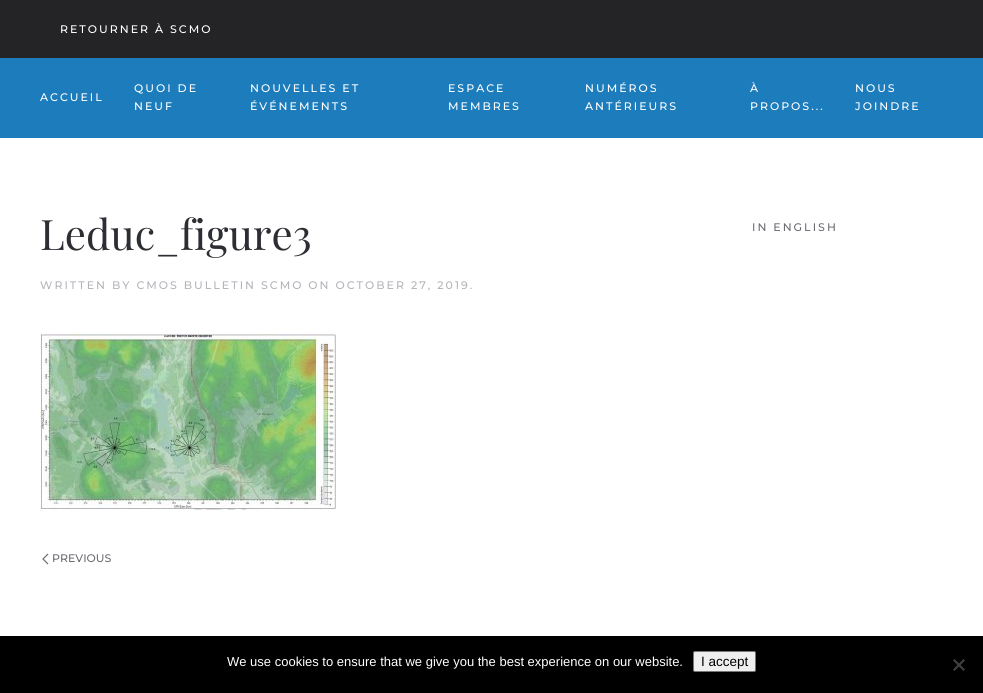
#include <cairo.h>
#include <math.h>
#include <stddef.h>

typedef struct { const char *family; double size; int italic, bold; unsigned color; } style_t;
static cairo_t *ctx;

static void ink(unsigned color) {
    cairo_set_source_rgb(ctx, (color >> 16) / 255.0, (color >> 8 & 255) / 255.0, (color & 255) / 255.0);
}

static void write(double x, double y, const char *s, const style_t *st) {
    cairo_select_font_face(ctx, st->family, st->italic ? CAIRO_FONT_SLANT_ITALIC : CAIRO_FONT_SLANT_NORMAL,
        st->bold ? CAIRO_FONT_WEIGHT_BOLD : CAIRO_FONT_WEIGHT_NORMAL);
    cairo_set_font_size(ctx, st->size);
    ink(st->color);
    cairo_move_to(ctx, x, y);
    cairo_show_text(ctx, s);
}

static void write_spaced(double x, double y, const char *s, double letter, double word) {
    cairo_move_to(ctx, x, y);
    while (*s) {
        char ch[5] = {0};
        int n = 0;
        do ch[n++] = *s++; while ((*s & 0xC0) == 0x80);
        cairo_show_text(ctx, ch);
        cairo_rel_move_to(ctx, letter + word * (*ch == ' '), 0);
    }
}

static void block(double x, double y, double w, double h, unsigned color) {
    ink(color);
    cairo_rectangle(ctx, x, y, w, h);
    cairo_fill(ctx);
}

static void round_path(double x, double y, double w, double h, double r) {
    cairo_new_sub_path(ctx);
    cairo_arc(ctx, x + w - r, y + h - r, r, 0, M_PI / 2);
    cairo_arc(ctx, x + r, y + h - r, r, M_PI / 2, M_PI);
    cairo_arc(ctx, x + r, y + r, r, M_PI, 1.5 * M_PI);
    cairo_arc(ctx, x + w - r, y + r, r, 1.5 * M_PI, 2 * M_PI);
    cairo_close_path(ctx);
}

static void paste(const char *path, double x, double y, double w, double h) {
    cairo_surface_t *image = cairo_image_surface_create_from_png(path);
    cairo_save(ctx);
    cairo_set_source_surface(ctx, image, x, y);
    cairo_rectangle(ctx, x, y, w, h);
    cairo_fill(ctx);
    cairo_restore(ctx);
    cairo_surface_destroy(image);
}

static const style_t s1 = {"Playfair Display", 42, 0, 0, 0x2d2e33};
static const style_t s2 = {"Montserrat Thin", 11, 0, 0, 0x6c6d74};
static const style_t s3 = {"Liberation Sans", 13, 0, 0, 0xffffff};
static const style_t s4 = {"Liberation Sans", 13.5, 0, 0, 0x000000};

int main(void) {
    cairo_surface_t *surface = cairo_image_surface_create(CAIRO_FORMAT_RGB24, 983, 693);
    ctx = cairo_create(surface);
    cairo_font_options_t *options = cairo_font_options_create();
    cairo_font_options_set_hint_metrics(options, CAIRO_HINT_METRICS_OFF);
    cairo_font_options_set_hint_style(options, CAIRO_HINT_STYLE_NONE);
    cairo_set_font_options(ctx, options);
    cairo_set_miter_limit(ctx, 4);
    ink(0xffffff);
    cairo_paint(ctx);
    block(0, 0, 983, 58, 0x242427);
    cairo_select_font_face(ctx, "Montserrat Thin", CAIRO_FONT_SLANT_NORMAL, CAIRO_FONT_WEIGHT_NORMAL);
    cairo_set_font_size(ctx, 11);
    ink(0xffffff);
    write_spaced(60, 33, "RETOURNER À SCMO", 2, 0);
    block(0, 58, 983, 80, 0x1c7cbc);
    ink(0xffffff);
    write_spaced(40, 101, "ACCUEIL", 2, 0);
    write_spaced(134, 92, "QUOI DE", 2, 0);
    write_spaced(134, 110, "NEUF", 2, 0);
    write_spaced(250, 92, "NOUVELLES ET", 2, 0);
    write_spaced(250, 110, "ÉVÉNEMENTS", 2, 0);
    write_spaced(448, 92, "ESPACE", 2, 0);
    write_spaced(448, 110, "MEMBRES", 2, 0);
    write_spaced(585, 92, "NUMÉROS", 2, 0);
    write_spaced(585, 110, "ANTÉRIEURS", 2, 0);
    write_spaced(750, 92, "À", 2, 0);
    write_spaced(750, 110, "PROPOS...", 2, 0);
    write_spaced(855, 92, "NOUS", 2, 0);
    write_spaced(855, 110, "JOINDRE", 2, 0);
    write(40, 250, "Leduc_figure3", &s1);
    cairo_select_font_face(ctx, "Montserrat Thin", CAIRO_FONT_SLANT_NORMAL, CAIRO_FONT_WEIGHT_NORMAL);
    cairo_set_font_size(ctx, 11);
    ink(0xb4b5ba);
    write_spaced(40, 289, "WRITTEN BY CMOS BULLETIN SCMO ON OCTOBER 27, 2019.", 2, 0);
    paste("pic1.png", 40, 334, 296, 176);
    cairo_new_path(ctx);
    cairo_move_to(ctx, 48, 554);
    cairo_line_to(ctx, 43, 559);
    cairo_line_to(ctx, 48, 564);
    ink(0x6c6d74);
    cairo_set_line_width(ctx, 1.2);
    cairo_stroke(ctx);
    write(52, 562, "PREVIOUS", &s2);
    write_spaced(752, 231, "IN ENGLISH", 2, 0);
    block(0, 636, 983, 57, 0x000000);
    write(227, 666, "We use cookies to ensure that we give you the best experience on our website.", &s3);
    ink(0xefefef);
    round_path(693.5, 651.5, 62, 20, 1.5);
    cairo_fill_preserve(ctx);
    ink(0x767676);
    cairo_set_line_width(ctx, 1);
    cairo_stroke(ctx);
    write(701, 666, "I accept", &s4);
    ink(0x404040);
    cairo_new_path(ctx);
    cairo_move_to(ctx, 963.5, 659);
    cairo_line_to(ctx, 965, 660.5);
    cairo_line_to(ctx, 954.5, 671);
    cairo_line_to(ctx, 953, 669.5);
    cairo_close_path(ctx);
    cairo_fill(ctx);
    cairo_new_path(ctx);
    cairo_move_to(ctx, 953, 660.5);
    cairo_line_to(ctx, 954.5, 659);
    cairo_line_to(ctx, 965, 669.5);
    cairo_line_to(ctx, 963.5, 671);
    cairo_close_path(ctx);
    cairo_fill(ctx);
    cairo_surface_write_to_png(surface, "screenshot.png");
    cairo_font_options_destroy(options);
    cairo_destroy(ctx);
    cairo_surface_destroy(surface);
    return 0;
}
